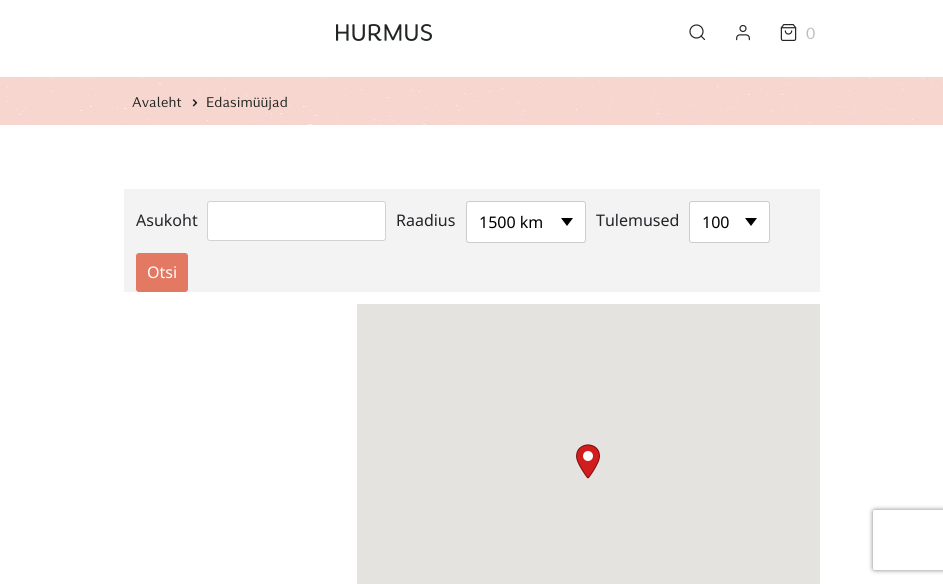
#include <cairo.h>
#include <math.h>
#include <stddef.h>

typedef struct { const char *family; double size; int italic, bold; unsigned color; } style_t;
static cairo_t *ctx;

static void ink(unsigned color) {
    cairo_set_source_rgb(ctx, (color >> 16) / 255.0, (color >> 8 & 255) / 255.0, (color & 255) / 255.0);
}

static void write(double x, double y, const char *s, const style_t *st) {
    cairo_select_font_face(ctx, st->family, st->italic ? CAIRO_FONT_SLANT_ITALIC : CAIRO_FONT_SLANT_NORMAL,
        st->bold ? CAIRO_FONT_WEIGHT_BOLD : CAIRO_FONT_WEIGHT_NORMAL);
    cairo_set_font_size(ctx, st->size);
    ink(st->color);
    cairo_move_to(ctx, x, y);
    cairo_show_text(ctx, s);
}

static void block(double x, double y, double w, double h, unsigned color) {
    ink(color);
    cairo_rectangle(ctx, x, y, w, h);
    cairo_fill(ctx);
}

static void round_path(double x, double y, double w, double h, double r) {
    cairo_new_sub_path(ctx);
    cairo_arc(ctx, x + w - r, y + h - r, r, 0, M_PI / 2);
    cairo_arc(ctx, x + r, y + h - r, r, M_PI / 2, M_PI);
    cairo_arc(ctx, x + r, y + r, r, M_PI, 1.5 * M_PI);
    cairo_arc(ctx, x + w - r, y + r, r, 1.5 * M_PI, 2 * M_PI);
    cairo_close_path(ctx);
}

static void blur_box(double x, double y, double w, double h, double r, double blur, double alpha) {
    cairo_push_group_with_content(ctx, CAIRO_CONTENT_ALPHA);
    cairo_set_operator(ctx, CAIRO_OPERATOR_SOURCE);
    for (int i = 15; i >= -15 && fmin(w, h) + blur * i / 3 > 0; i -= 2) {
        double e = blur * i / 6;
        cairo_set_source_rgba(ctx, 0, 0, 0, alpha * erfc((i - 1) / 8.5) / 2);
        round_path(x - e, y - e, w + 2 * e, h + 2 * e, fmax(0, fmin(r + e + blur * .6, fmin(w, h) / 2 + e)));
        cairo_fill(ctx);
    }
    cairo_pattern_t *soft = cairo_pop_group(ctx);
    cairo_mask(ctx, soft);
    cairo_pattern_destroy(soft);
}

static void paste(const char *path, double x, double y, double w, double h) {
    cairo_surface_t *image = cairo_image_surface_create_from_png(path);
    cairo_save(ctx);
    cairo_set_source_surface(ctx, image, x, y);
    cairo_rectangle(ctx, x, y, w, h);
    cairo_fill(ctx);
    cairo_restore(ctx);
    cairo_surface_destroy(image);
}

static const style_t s1 = {"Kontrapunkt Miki", 16, 0, 0, 0xbcbdbc};
static const style_t s2 = {"Kontrapunkt Miki", 14, 0, 0, 0x212623};
static const style_t s3 = {"Noto Sans", 16, 0, 0, 0x212529};
static const style_t s4 = {"Noto Sans", 16, 0, 0, 0x000000};
static const style_t s5 = {"Noto Sans", 16, 0, 0, 0xffffff};

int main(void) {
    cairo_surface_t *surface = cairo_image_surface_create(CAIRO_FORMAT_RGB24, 943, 584);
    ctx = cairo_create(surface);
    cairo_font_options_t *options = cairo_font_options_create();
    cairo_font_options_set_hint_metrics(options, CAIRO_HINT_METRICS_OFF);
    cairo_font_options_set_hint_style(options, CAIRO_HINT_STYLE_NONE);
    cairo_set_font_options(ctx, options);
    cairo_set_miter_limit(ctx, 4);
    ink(0xffffff);
    cairo_paint(ctx);
    paste("pic1.png", 336, 24, 96, 17);
    cairo_arc(ctx, 696.5, 31.5, 6.5, 0, 2 * M_PI);
    ink(0x212623);
    cairo_set_line_width(ctx, 1.2);
    cairo_stroke(ctx);
    cairo_new_path(ctx);
    cairo_move_to(ctx, 704.5, 39.5);
    cairo_line_to(ctx, 701, 36);
    cairo_set_line_cap(ctx, CAIRO_LINE_CAP_ROUND);
    cairo_set_line_join(ctx, CAIRO_LINE_JOIN_ROUND);
    cairo_stroke(ctx);
    paste("pic2.png", 736, 24, 14, 17);
    paste("pic3.png", 780, 24, 17, 17);
    write(806, 39, "0", &s1);
    paste("pic4.png", 0, 77, 943, 48);
    write(132, 107, "Avaleht", &s2);
    paste("pic5.png", 192, 99, 6, 8);
    write(206, 107, "Edasimüüjad", &s2);
    block(124, 189, 696, 103, 0xf4f3f3);
    write(136, 226, "Asukoht", &s3);
    ink(0xffffff);
    round_path(207.5, 201.5, 178, 39, 2.5);
    cairo_fill_preserve(ctx);
    ink(0xd2d2d2);
    cairo_set_line_width(ctx, 1);
    cairo_set_line_cap(ctx, CAIRO_LINE_CAP_BUTT);
    cairo_set_line_join(ctx, CAIRO_LINE_JOIN_MITER);
    cairo_stroke(ctx);
    write(396, 226, "Raadius", &s3);
    ink(0xffffff);
    round_path(466.5, 201.5, 119, 41, 2.5);
    cairo_fill_preserve(ctx);
    ink(0xcccccc);
    cairo_stroke(ctx);
    write(479, 228, "1500 km", &s4);
    cairo_new_path(ctx);
    cairo_move_to(ctx, 561, 218);
    cairo_line_to(ctx, 573, 218);
    cairo_line_to(ctx, 567, 226);
    cairo_close_path(ctx);
    cairo_fill(ctx);
    ink(0xe2e1e1);
    cairo_new_path(ctx);
    cairo_move_to(ctx, 586, 241);
    cairo_line_to(ctx, 585, 242);
    cairo_line_to(ctx, 585.5, 242.5);
    cairo_close_path(ctx);
    cairo_fill(ctx);
    ink(0xe1e1e1);
    cairo_new_path(ctx);
    cairo_move_to(ctx, 466, 241);
    cairo_line_to(ctx, 467, 242);
    cairo_line_to(ctx, 466.5, 242.5);
    cairo_close_path(ctx);
    cairo_fill(ctx);
    write(596, 226, "Tulemused", &s3);
    ink(0xffffff);
    round_path(689.5, 201.5, 80, 41, 2.5);
    cairo_fill_preserve(ctx);
    ink(0xcccccc);
    cairo_stroke(ctx);
    write(702, 228, "100", &s4);
    cairo_new_path(ctx);
    cairo_move_to(ctx, 745, 218);
    cairo_line_to(ctx, 757, 218);
    cairo_line_to(ctx, 751, 226);
    cairo_close_path(ctx);
    cairo_fill(ctx);
    ink(0xe2e1e1);
    cairo_new_path(ctx);
    cairo_move_to(ctx, 770, 241);
    cairo_line_to(ctx, 769, 242);
    cairo_line_to(ctx, 769.5, 242.5);
    cairo_close_path(ctx);
    cairo_fill(ctx);
    ink(0xe1e1e1);
    cairo_new_path(ctx);
    cairo_move_to(ctx, 689, 241);
    cairo_line_to(ctx, 690, 242);
    cairo_line_to(ctx, 689.5, 242.5);
    cairo_close_path(ctx);
    cairo_fill(ctx);
    ink(0xe37962);
    round_path(136.5, 253.5, 51, 38, 2.5);
    cairo_fill_preserve(ctx);
    cairo_stroke(ctx);
    write(147, 278, "Otsi", &s5);
    block(357, 304, 463, 280, 0xe5e3df);
    paste("pic6.png", 576, 444, 24, 35);
    cairo_save(ctx);
    cairo_set_fill_rule(ctx, CAIRO_FILL_RULE_EVEN_ODD);
    cairo_new_path(ctx);
    cairo_move_to(ctx, 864, 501);
    cairo_line_to(ctx, 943, 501);
    cairo_line_to(ctx, 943, 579);
    cairo_line_to(ctx, 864, 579);
    cairo_close_path(ctx);
    cairo_move_to(ctx, 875, 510);
    cairo_line_to(ctx, 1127, 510);
    cairo_curve_to(ctx, 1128, 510, 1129, 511, 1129, 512);
    cairo_line_to(ctx, 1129, 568);
    cairo_curve_to(ctx, 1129, 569, 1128, 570, 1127, 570);
    cairo_line_to(ctx, 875, 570);
    cairo_curve_to(ctx, 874, 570, 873, 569, 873, 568);
    cairo_line_to(ctx, 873, 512);
    cairo_curve_to(ctx, 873, 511, 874, 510, 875, 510);
    cairo_close_path(ctx);
    cairo_clip(ctx);
    ink(0x808080);
    blur_box(873, 510, 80, 60, 2, 2.5, 1);
    cairo_restore(ctx);
    cairo_surface_write_to_png(surface, "screenshot.png");
    cairo_font_options_destroy(options);
    cairo_destroy(ctx);
    cairo_surface_destroy(surface);
    return 0;
}
